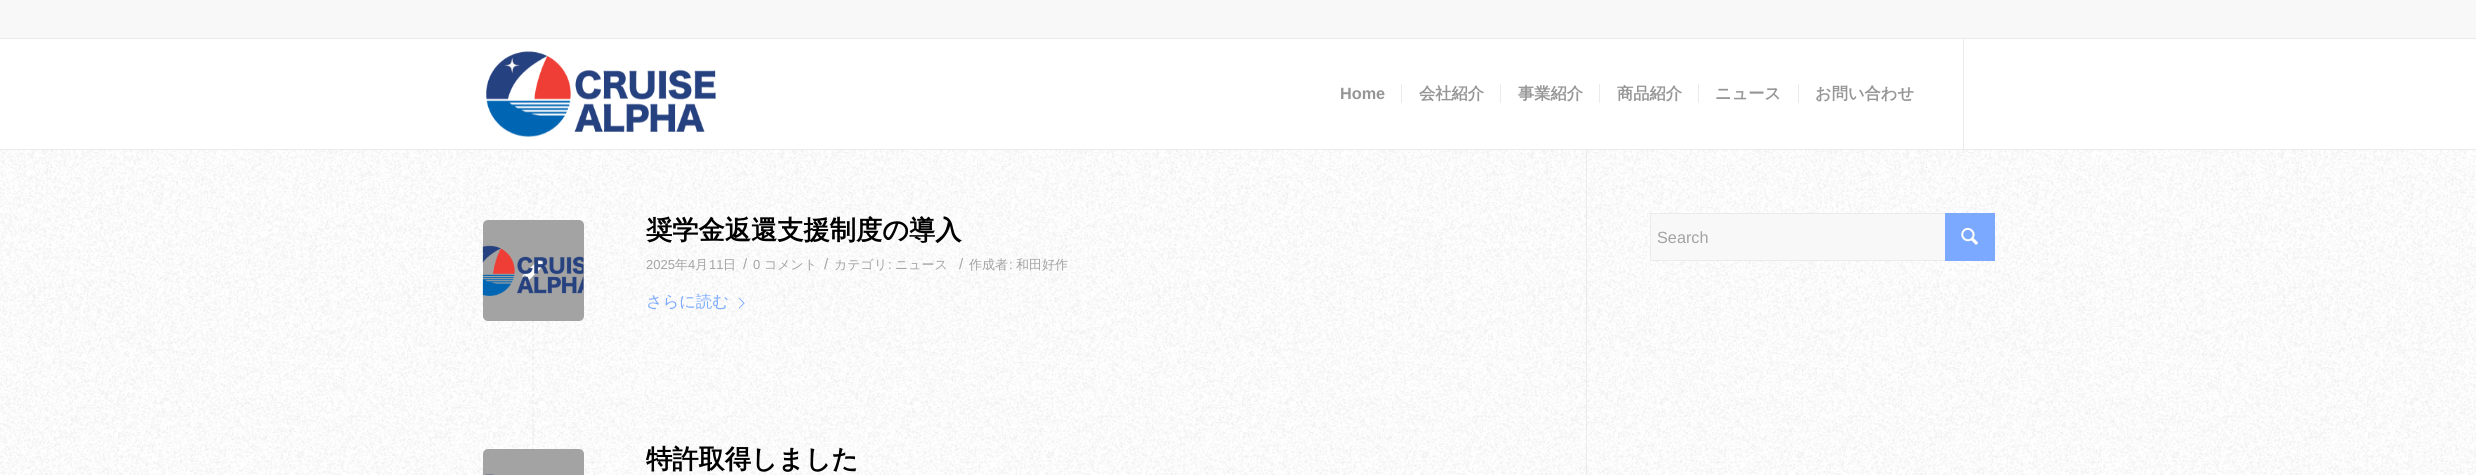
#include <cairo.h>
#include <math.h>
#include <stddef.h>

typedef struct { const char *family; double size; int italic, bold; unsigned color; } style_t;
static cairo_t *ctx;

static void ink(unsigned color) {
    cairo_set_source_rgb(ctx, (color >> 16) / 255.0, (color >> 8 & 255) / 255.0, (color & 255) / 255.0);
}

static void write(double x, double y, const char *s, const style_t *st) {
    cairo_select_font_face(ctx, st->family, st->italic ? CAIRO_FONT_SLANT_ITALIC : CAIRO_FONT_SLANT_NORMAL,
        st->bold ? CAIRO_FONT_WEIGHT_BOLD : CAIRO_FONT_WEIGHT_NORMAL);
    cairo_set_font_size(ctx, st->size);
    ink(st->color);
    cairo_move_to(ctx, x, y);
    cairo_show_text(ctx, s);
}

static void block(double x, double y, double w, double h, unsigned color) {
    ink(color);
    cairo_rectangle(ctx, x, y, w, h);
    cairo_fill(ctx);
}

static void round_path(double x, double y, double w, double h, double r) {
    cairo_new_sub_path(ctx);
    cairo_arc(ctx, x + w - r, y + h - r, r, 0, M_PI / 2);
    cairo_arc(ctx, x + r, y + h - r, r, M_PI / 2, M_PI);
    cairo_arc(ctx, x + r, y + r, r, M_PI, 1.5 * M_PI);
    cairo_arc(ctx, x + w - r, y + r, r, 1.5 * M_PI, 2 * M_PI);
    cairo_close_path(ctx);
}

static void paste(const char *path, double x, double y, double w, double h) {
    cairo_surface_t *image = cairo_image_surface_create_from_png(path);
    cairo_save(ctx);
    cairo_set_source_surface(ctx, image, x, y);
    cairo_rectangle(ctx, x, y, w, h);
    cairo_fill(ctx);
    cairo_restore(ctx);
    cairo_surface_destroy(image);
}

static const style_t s1 = {"Liberation Sans", 16.25, 0, 1, 0x969696};
static const style_t s2 = {"WenQuanYi Zen Hei", 16.25, 0, 1, 0x969696};
static const style_t s3 = {"WenQuanYi Zen Hei", 26.25, 0, 1, 0x000000};
static const style_t s4 = {"Liberation Sans", 13, 0, 0, 0xa3a3a3};
static const style_t s5 = {"WenQuanYi Zen Hei Medium", 13, 0, 0, 0xa3a3a3};
static const style_t s6 = {"Liberation Sans", 15, 0, 0, 0xa3a3a3};
static const style_t s7 = {"WenQuanYi Zen Hei Medium", 16.25, 0, 0, 0x7aa9ff};
static const style_t s8 = {"Liberation Sans", 16.25, 0, 0, 0xa3a3a3};

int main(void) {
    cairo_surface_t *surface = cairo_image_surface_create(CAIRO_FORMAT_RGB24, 2476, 475);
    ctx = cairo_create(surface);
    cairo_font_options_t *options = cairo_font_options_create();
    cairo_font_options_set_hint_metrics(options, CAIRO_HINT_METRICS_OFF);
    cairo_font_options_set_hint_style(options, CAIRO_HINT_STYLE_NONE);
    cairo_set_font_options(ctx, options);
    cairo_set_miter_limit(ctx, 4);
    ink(0xffffff);
    cairo_paint(ctx);
    block(0, 0, 2476, 38, 0xf8f8f8);
    block(0, 38, 2476, 1, 0xebebeb);
    block(0, 149, 2476, 1, 0xebebeb);
    paste("pic1.png", 486, 51, 230, 86);
    block(1963, 39, 1, 110, 0xebebeb);
    write(1340, 99, "Home", &s1);
    write(1419, 99, "会社紹介", &s2);
    block(1401, 84, 1, 19, 0xebebeb);
    write(1518, 99, "事業紹介", &s2);
    block(1500, 84, 1, 19, 0xebebeb);
    write(1617, 99, "商品紹介", &s2);
    block(1599, 84, 1, 19, 0xebebeb);
    write(1715, 99, "ニュース", &s2);
    block(1698, 84, 1, 19, 0xebebeb);
    write(1815, 99, "お問い合わせ", &s2);
    block(1798, 84, 1, 19, 0xebebeb);
    paste("pic2.png", 0, 150, 2476, 325);
    block(1586, 150, 1, 325, 0xebebeb);
    cairo_new_path(ctx);
    cairo_move_to(ctx, 533, 212.5);
    cairo_line_to(ctx, 533, 441);
    cairo_set_line_width(ctx, 1.2);
    cairo_set_dash(ctx, (double[]){3.75, 2.5}, 2, 0);
    cairo_stroke(ctx);
    write(646, 239, "奨学金返還支援制度の導入", &s3);
    write(646, 269, "2025", &s4);
    write(675, 269, "年", &s5);
    write(688, 269, "4", &s4);
    write(695, 269, "月", &s5);
    write(709, 269, "11", &s4);
    write(723, 269, "日", &s5);
    write(743, 269, "/", &s6);
    write(753, 269, "0", &s4);
    write(764, 269, "コメント", &s5);
    write(824, 269, "/", &s6);
    write(834, 269, "カテゴリ", &s5);
    write(888, 269, ":", &s4);
    write(895, 269, "ニュース", &s5);
    write(959, 269, "/", &s6);
    write(969, 269, "作成者", &s5);
    write(1009, 269, ":", &s4);
    write(1016, 269, "和田好作", &s5);
    write(646, 307, "さらに読む", &s7);
    paste("pic3.png", 738, 297, 7, 12);
    ink(0xa3a3a3);
    round_path(483, 220, 101, 101, 5);
    cairo_fill(ctx);
    paste("pic5.png", 521, 260, 23, 23);
    paste("pic4.png", 482, 245, 102, 52);
    cairo_new_path(ctx);
    cairo_move_to(ctx, 533, 441);
    cairo_line_to(ctx, 533, 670);
    ink(0xebebeb);
    cairo_stroke(ctx);
    write(646, 468, "特許取得しました", &s3);
    ink(0xa3a3a3);
    round_path(483, 449, 101, 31, 5);
    cairo_fill(ctx);
    paste("pic6.png", 484, 474, 11, 1);
    block(1651, 214, 294, 46, 0xf8f8f8);
    cairo_rectangle(ctx, 1650.5, 213.5, 344, 47);
    ink(0xebebeb);
    cairo_set_line_width(ctx, 1);
    cairo_set_dash(ctx, NULL, 0, 0);
    cairo_stroke(ctx);
    write(1657, 243, "Search", &s8);
    block(1945, 213, 50, 48, 0x7aa9ff);
    paste("pic7.png", 1961, 227, 17, 18);
    cairo_surface_write_to_png(surface, "screenshot.png");
    cairo_font_options_destroy(options);
    cairo_destroy(ctx);
    cairo_surface_destroy(surface);
    return 0;
}
